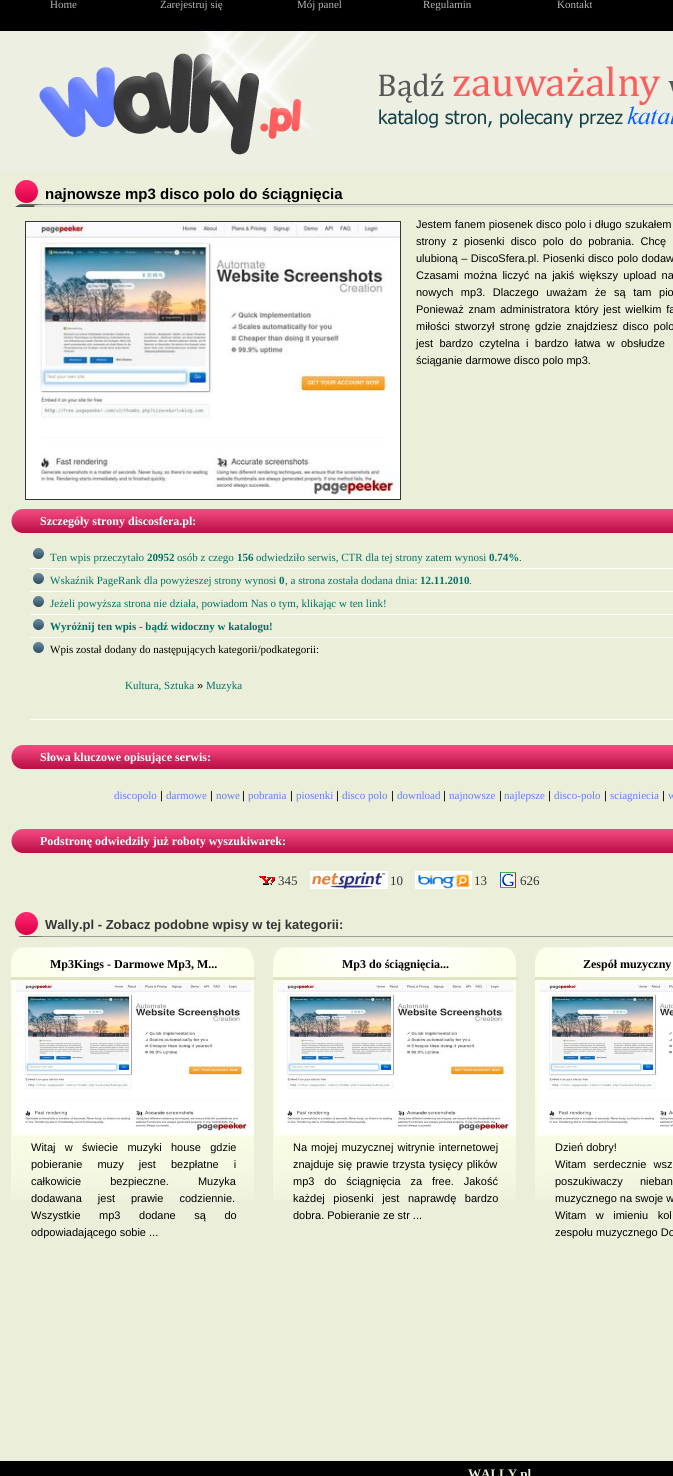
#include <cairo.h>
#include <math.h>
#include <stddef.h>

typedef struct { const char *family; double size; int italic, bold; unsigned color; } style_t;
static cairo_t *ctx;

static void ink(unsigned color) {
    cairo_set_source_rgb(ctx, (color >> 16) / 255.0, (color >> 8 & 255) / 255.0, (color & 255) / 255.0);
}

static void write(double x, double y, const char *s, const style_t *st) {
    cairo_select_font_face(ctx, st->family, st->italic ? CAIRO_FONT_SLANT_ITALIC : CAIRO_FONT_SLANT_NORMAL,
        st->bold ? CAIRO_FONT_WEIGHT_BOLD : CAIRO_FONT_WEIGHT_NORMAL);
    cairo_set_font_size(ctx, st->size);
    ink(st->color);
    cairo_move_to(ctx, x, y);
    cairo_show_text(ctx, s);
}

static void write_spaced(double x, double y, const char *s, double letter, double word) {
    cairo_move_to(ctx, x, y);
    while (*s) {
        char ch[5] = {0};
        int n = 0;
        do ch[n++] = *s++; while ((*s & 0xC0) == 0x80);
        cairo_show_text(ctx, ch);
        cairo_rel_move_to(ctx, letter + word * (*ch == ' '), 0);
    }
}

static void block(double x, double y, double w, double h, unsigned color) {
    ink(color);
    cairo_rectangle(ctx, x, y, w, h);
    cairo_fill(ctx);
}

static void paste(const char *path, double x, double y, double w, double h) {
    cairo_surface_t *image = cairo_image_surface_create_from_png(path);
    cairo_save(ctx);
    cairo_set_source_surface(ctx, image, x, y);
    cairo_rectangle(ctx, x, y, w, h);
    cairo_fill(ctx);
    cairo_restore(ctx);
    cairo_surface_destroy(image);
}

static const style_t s1 = {"Liberation Serif", 11, 0, 0, 0xb6b6b6};
static const style_t s2 = {"Liberation Sans", 15, 0, 1, 0x000000};
static const style_t s3 = {"Liberation Sans", 11, 0, 0, 0x000000};
static const style_t s4 = {"Liberation Serif", 12, 0, 1, 0xffffff};
static const style_t s5 = {"Liberation Serif", 11, 0, 0, 0x007266};
static const style_t s6 = {"Liberation Serif", 11, 0, 1, 0x007266};
static const style_t s7 = {"Liberation Serif", 11, 0, 0, 0x000000};
static const style_t s8 = {"Liberation Serif", 11, 0, 0, 0x637cfc};
static const style_t s9 = {"Liberation Serif", 13, 0, 0, 0x353535};
static const style_t s10 = {"Liberation Sans", 13, 0, 1, 0x353535};
static const style_t s11 = {"Liberation Serif", 12, 0, 1, 0x000000};
static const style_t s12 = {"Liberation Serif", 13, 0, 1, 0xebeed9};

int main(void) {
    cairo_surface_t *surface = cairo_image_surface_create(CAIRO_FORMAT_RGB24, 673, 1476);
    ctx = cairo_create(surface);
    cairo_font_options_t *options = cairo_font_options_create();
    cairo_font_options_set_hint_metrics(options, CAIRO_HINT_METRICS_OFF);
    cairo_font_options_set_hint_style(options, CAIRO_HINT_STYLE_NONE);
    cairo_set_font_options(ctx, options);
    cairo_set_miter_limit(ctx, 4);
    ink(0xebeed9);
    cairo_paint(ctx);
    paste("pic1.png", 0, 0, 673, 31);
    write(50, 8, "Home", &s1);
    write(160, 8, "Zarejestruj się", &s1);
    write(297, 8, "Mój panel", &s1);
    write(423, 8, "Regulamin", &s1);
    write(557, 8, "Kontakt", &s1);
    block(0, 31, 673, 141, 0xedefe3);
    paste("pic2.png", 39, 31, 634, 124);
    paste("pic3.png", 10, 177, 663, 30);
    write(45, 199, "najnowsze mp3 disco polo do ściągnięcia", &s2);
    cairo_rectangle(ctx, 25.5, 221.5, 375, 278);
    ink(0x363636);
    cairo_set_line_width(ctx, 1);
    cairo_stroke(ctx);
    paste("pic4.png", 26, 222, 374, 277);
    cairo_select_font_face(ctx, "Liberation Sans", CAIRO_FONT_SLANT_NORMAL, CAIRO_FONT_WEIGHT_NORMAL);
    cairo_set_font_size(ctx, 11);
    ink(0x000000);
    write_spaced(416, 228, "Jestem fanem piosenek disco polo i długo szukałem", 0, 0.25);
    write_spaced(416, 245, "strony z piosenki disco polo do pobrania. Chcę", 0, 3.25);
    write_spaced(416, 262, "ulubioną – DiscoSfera.pl. Piosenki disco polo dodaw", 0, 0.5);
    write_spaced(416, 279, "Czasami można liczyć na jakiś większy upload na", 0, 2.25);
    write_spaced(416, 296, "nowych mp3. Dlaczego uważam że są tam pio", 0, 4.5);
    write_spaced(416, 313, "Ponieważ znam administratora który jest wielkim fa", 0, 1.75);
    write_spaced(416, 330, "miłości stworzył stronę gdzie znajdziesz disco polo", 0, 2);
    write_spaced(416, 347, "jest bardzo czytelna i bardzo łatwa w obsłudze", 0, 3.25);
    write(416, 364, "ściąganie darmowe disco polo mp3.", &s3);
    paste("pic5.png", 11, 509, 662, 24);
    write(40, 525, "Szczegóły strony discosfera.pl:", &s4);
    paste("pic6.png", 33, 548, 11, 11);
    block(30, 568, 643, 1, 0xffffff);
    write(50, 561, "Ten wpis przeczytało", &s5);
    write(147, 561, "20952", &s6);
    write(177, 561, "osób z czego", &s5);
    write(237, 561, "156", &s6);
    write(256, 561, "odwiedziło serwis, CTR dla tej strony zatem wynosi", &s5);
    write(489, 561, "0.74%", &s6);
    write(519, 561, ".", &s5);
    paste("pic6.png", 33, 573, 11, 11);
    block(30, 591, 643, 1, 0xffffff);
    write(50, 584, "Wskaźnik PageRank dla powyżeszej strony wynosi", &s5);
    write(279, 584, "0", &s6);
    write(285, 584, ", a strona została dodana dnia:", &s5);
    write(420, 584, "12.11.2010", &s6);
    write(469, 584, ".", &s5);
    paste("pic6.png", 33, 596, 11, 11);
    block(30, 614, 643, 1, 0xffffff);
    write(50, 607, "Jeżeli powyższa strona nie działa, powiadom Nas o tym, klikając w ten link!", &s5);
    paste("pic6.png", 33, 619, 11, 11);
    block(30, 637, 643, 1, 0xffffff);
    write(50, 630, "Wyróżnij ten wpis - bądź widoczny w katalogu!", &s6);
    paste("pic6.png", 33, 642, 11, 11);
    block(30, 719, 643, 1, 0xffffff);
    write(50, 653, "Wpis został dodany do następujących kategorii/podkategorii:", &s7);
    write(125, 689, "Kultura, Sztuka", &s5);
    write(197, 689, "»", &s3);
    write(206, 689, "Muzyka", &s5);
    paste("pic5.png", 11, 745, 662, 24);
    write(40, 761, "Słowa kluczowe opisujące serwis:", &s4);
    write(114, 799, "discopolo", &s8);
    write(160, 799, "|", &s3);
    write(166, 799, "darmowe", &s8);
    write(210, 799, "|", &s3);
    write(216, 799, "nowe", &s8);
    write(242, 799, "|", &s3);
    write(248, 799, "pobrania", &s8);
    write(290, 799, "|", &s3);
    write(296, 799, "piosenki", &s8);
    write(336, 799, "|", &s3);
    write(342, 799, "disco polo", &s8);
    write(391, 799, "|", &s3);
    write(397, 799, "download", &s8);
    write(443, 799, "|", &s3);
    write(449, 799, "najnowsze", &s8);
    write(499, 799, "|", &s3);
    write(504, 799, "najlepsze", &s8);
    write(548, 799, "|", &s3);
    write(554, 799, "disco-polo", &s8);
    write(604, 799, "|", &s3);
    write(610, 799, "sciagniecia", &s8);
    write(662, 799, "|", &s3);
    write(668, 799, "w", &s8);
    paste("pic5.png", 11, 829, 662, 24);
    write(40, 845, "Podstronę odwiedziły już roboty wyszukiwarek:", &s4);
    paste("pic7.png", 259, 876, 16, 9);
    write(278, 885, "345", &s9);
    paste("pic8.png", 310, 871, 78, 18);
    write(390, 885, "10", &s9);
    paste("pic9.png", 415, 871, 57, 18);
    write(474, 885, "13", &s9);
    paste("pic10.png", 500, 872, 16, 16);
    write(520, 885, "626", &s9);
    paste("pic11.png", 10, 909, 663, 28);
    write(45, 929, "Wally.pl - Zobacz podobne wpisy w tej kategorii:", &s10);
    paste("pic12.png", 11, 947, 243, 253);
    block(11, 977, 245, 3, 0xdfe4c4);
    write(50, 968, "Mp3Kings - Darmowe Mp3, M...", &s11);
    cairo_rectangle(ctx, 14.5, 981.5, 238, 153);
    ink(0xfdfff2);
    cairo_set_line_width(ctx, 3);
    cairo_stroke(ctx);
    paste("pic13.png", 16, 983, 235, 150);
    cairo_select_font_face(ctx, "Liberation Sans", CAIRO_FONT_SLANT_NORMAL, CAIRO_FONT_WEIGHT_NORMAL);
    cairo_set_font_size(ctx, 11);
    ink(0x000000);
    write_spaced(31, 1151, "Witaj w świecie muzyki house gdzie", 0, 6.25);
    write_spaced(31, 1168, "pobieranie muzy jest bezpłatne i", 0, 12);
    write_spaced(31, 1185, "całkowicie bezpieczne. Muzyka", 0, 26);
    write_spaced(31, 1202, "dodawana jest prawie codziennie.", 0, 13);
    write_spaced(31, 1219, "Wszystkie mp3 dodane są do", 0, 15.5);
    write(31, 1236, "odpowiadającego sobie ...", &s3);
    paste("pic12.png", 273, 947, 243, 253);
    block(273, 977, 245, 3, 0xdfe4c4);
    write(342, 968, "Mp3 do ściągnięcia...", &s11);
    cairo_rectangle(ctx, 276.5, 981.5, 238, 153);
    ink(0xfdfff2);
    cairo_stroke(ctx);
    paste("pic14.png", 278, 983, 235, 150);
    cairo_select_font_face(ctx, "Liberation Sans", CAIRO_FONT_SLANT_NORMAL, CAIRO_FONT_WEIGHT_NORMAL);
    cairo_set_font_size(ctx, 11);
    ink(0x000000);
    write_spaced(293, 1151, "Na mojej muzycznej witrynie internetowej", 0, 1);
    write_spaced(293, 1168, "znajduje się prawie trzysta tysięcy plików", 0, 1);
    write_spaced(293, 1185, "mp3 do ściągnięcia za free. Jakość", 0, 6.75);
    write_spaced(293, 1202, "każdej piosenki jest naprawdę bardzo", 0, 5.5);
    write(293, 1219, "dobra. Pobieranie ze str ...", &s3);
    paste("pic15.png", 535, 947, 138, 253);
    block(535, 977, 138, 3, 0xdfe4c4);
    write(583, 968, "Zespół muzyczny", &s11);
    cairo_rectangle(ctx, 538.5, 981.5, 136, 153);
    ink(0xfdfff2);
    cairo_stroke(ctx);
    paste("pic16.png", 540, 983, 133, 150);
    write(555, 1151, "Dzień dobry!", &s3);
    write_spaced(555, 1168, "Witam serdecznie wsz", 0, 4);
    write_spaced(555, 1185, "poszukiwaczy nieban", 0, 14);
    write(555, 1202, "muzycznego na swoje w", &s3);
    write_spaced(555, 1219, "Witam w imieniu kol", 0, 6.5);
    write(555, 1236, "zespołu muzycznego Do", &s3);
    block(0, 1461, 673, 15, 0x000000);
    write(468, 1478, "WALLY.pl", &s12);
    cairo_surface_write_to_png(surface, "screenshot.png");
    cairo_font_options_destroy(options);
    cairo_destroy(ctx);
    cairo_surface_destroy(surface);
    return 0;
}
